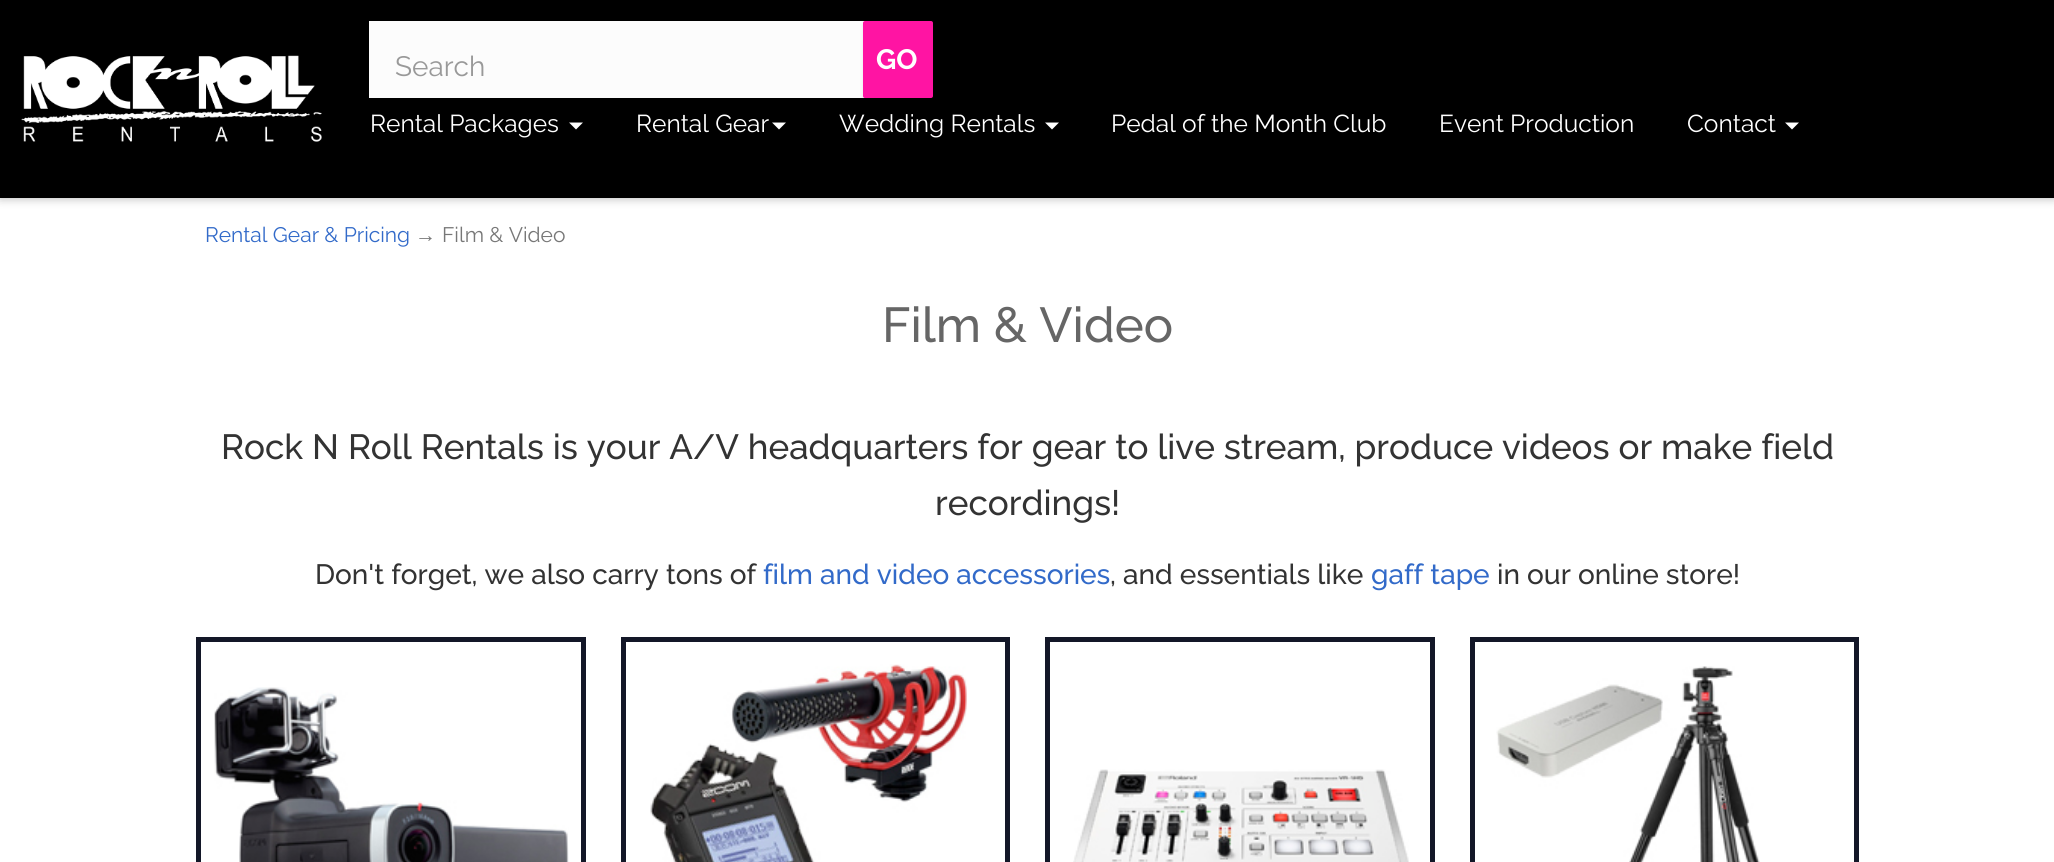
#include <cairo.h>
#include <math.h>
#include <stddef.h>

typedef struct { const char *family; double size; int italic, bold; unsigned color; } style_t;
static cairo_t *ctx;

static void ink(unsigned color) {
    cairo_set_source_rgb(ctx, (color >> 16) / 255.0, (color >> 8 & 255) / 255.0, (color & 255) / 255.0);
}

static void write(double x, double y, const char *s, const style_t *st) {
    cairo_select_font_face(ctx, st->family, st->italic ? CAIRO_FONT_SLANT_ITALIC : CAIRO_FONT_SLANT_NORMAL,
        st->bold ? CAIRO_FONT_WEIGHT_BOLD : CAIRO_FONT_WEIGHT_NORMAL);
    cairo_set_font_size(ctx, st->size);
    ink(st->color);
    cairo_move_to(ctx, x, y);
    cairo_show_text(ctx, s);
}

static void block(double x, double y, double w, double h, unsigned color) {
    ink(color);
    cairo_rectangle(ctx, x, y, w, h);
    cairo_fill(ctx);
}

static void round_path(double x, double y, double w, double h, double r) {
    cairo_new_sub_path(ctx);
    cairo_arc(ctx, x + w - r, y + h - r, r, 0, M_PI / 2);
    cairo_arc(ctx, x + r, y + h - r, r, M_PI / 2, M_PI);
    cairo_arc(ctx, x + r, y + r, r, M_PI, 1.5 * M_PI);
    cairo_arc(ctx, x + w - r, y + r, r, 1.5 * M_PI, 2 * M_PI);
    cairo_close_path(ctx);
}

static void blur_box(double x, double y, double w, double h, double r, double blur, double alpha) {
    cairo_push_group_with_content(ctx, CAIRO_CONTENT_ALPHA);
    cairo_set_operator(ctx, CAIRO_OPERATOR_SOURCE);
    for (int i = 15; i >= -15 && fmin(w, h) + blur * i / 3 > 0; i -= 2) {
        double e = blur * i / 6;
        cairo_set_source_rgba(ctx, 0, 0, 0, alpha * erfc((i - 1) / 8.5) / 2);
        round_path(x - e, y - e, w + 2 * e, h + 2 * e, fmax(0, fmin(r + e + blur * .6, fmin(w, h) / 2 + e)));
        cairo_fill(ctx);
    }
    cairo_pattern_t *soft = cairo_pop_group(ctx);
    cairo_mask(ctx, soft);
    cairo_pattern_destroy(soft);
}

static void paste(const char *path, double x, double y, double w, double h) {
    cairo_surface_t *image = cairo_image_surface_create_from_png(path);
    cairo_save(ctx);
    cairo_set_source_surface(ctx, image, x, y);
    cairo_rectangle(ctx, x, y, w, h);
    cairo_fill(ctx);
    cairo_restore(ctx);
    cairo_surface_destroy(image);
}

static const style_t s1 = {"Raleway", 28, 0, 0, 0x999999};
static const style_t s2 = {"Raleway", 28, 0, 1, 0xffffff};
static const style_t s3 = {"Raleway", 24.5, 0, 0, 0xffffff};
static const style_t s4 = {"Raleway", 21, 0, 0, 0x326ac9};
static const style_t s5 = {"Liberation Sans", 21, 0, 0, 0x777777};
static const style_t s6 = {"Raleway", 21, 0, 0, 0x777777};
static const style_t s7 = {"Raleway Medium", 49, 0, 0, 0x666666};
static const style_t s8 = {"Raleway Medium", 35, 0, 0, 0x333333};
static const style_t s9 = {"Raleway Medium", 28, 0, 0, 0x333333};
static const style_t s10 = {"Raleway Medium", 28, 0, 0, 0x326ac9};

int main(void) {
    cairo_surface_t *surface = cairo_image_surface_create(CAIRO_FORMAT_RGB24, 2054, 862);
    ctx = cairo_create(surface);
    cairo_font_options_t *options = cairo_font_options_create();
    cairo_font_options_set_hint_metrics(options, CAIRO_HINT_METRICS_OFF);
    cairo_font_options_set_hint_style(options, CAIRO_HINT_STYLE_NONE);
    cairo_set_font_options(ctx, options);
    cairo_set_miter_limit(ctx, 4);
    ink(0xffffff);
    cairo_paint(ctx);
    ink(0x000000);
    blur_box(0, 0, 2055, 198, 0, 5, 0.3);
    block(0, 0, 2054, 198, 0x000000);
    paste("pic1.png", 21, 55, 301, 87);
    block(369, 21, 496, 77, 0xfcfcfc);
    write(395, 76, "Search", &s1);
    ink(0x000000);
    blur_box(865, 23, 70, 77, 2, 2.5, 0.2);
    ink(0xff14a3);
    round_path(863, 21, 70, 77, 2);
    cairo_fill(ctx);
    write(876, 69, "GO", &s2);
    write(370, 132, "Rental Packages", &s3);
    cairo_new_path(ctx);
    cairo_move_to(ctx, 569, 122.5);
    cairo_line_to(ctx, 583, 122.5);
    cairo_line_to(ctx, 576, 129.5);
    cairo_close_path(ctx);
    cairo_fill(ctx);
    write(636, 132, "Rental Gear", &s3);
    cairo_new_path(ctx);
    cairo_move_to(ctx, 772, 122.5);
    cairo_line_to(ctx, 786, 122.5);
    cairo_line_to(ctx, 779, 129.5);
    cairo_close_path(ctx);
    cairo_fill(ctx);
    write(839, 132, "Wedding Rentals", &s3);
    cairo_new_path(ctx);
    cairo_move_to(ctx, 1045, 122.5);
    cairo_line_to(ctx, 1059, 122.5);
    cairo_line_to(ctx, 1052, 129.5);
    cairo_close_path(ctx);
    cairo_fill(ctx);
    write(1111, 132, "Pedal of the Month Club", &s3);
    write(1439, 132, "Event Production", &s3);
    write(1687, 132, "Contact", &s3);
    cairo_new_path(ctx);
    cairo_move_to(ctx, 1785, 122.5);
    cairo_line_to(ctx, 1799, 122.5);
    cairo_line_to(ctx, 1792, 129.5);
    cairo_close_path(ctx);
    cairo_fill(ctx);
    write(205, 242, "Rental Gear & Pricing", &s4);
    write(415, 242, "→", &s5);
    write(442, 242, "Film & Video", &s6);
    write(882, 342, "Film & Video", &s7);
    write(221, 459, "Rock N Roll Rentals is your A/V headquarters for gear to live stream, produce videos or make field", &s8);
    write(935, 515, "recordings!", &s8);
    write(315, 584, "Don't forget, we also carry tons of", &s9);
    write(763, 584, "film and video accessories", &s10);
    write(1110, 584, ", and essentials like", &s9);
    write(1371, 584, "gaff tape", &s10);
    write(1497, 584, "in our online store!", &s9);
    cairo_rectangle(ctx, 198.5, 639.5, 385, 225);
    ink(0x131728);
    cairo_set_line_width(ctx, 5);
    cairo_stroke(ctx);
    paste("pic2.png", 214, 687, 355, 175);
    cairo_rectangle(ctx, 623.5, 639.5, 384, 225);
    cairo_stroke(ctx);
    paste("pic3.png", 650, 664, 317, 198);
    cairo_rectangle(ctx, 1047.5, 639.5, 385, 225);
    cairo_stroke(ctx);
    paste("pic4.png", 1073, 769, 336, 93);
    cairo_rectangle(ctx, 1472.5, 639.5, 384, 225);
    cairo_stroke(ctx);
    paste("pic5.png", 1496, 666, 264, 196);
    cairo_surface_write_to_png(surface, "screenshot.png");
    cairo_font_options_destroy(options);
    cairo_destroy(ctx);
    cairo_surface_destroy(surface);
    return 0;
}
